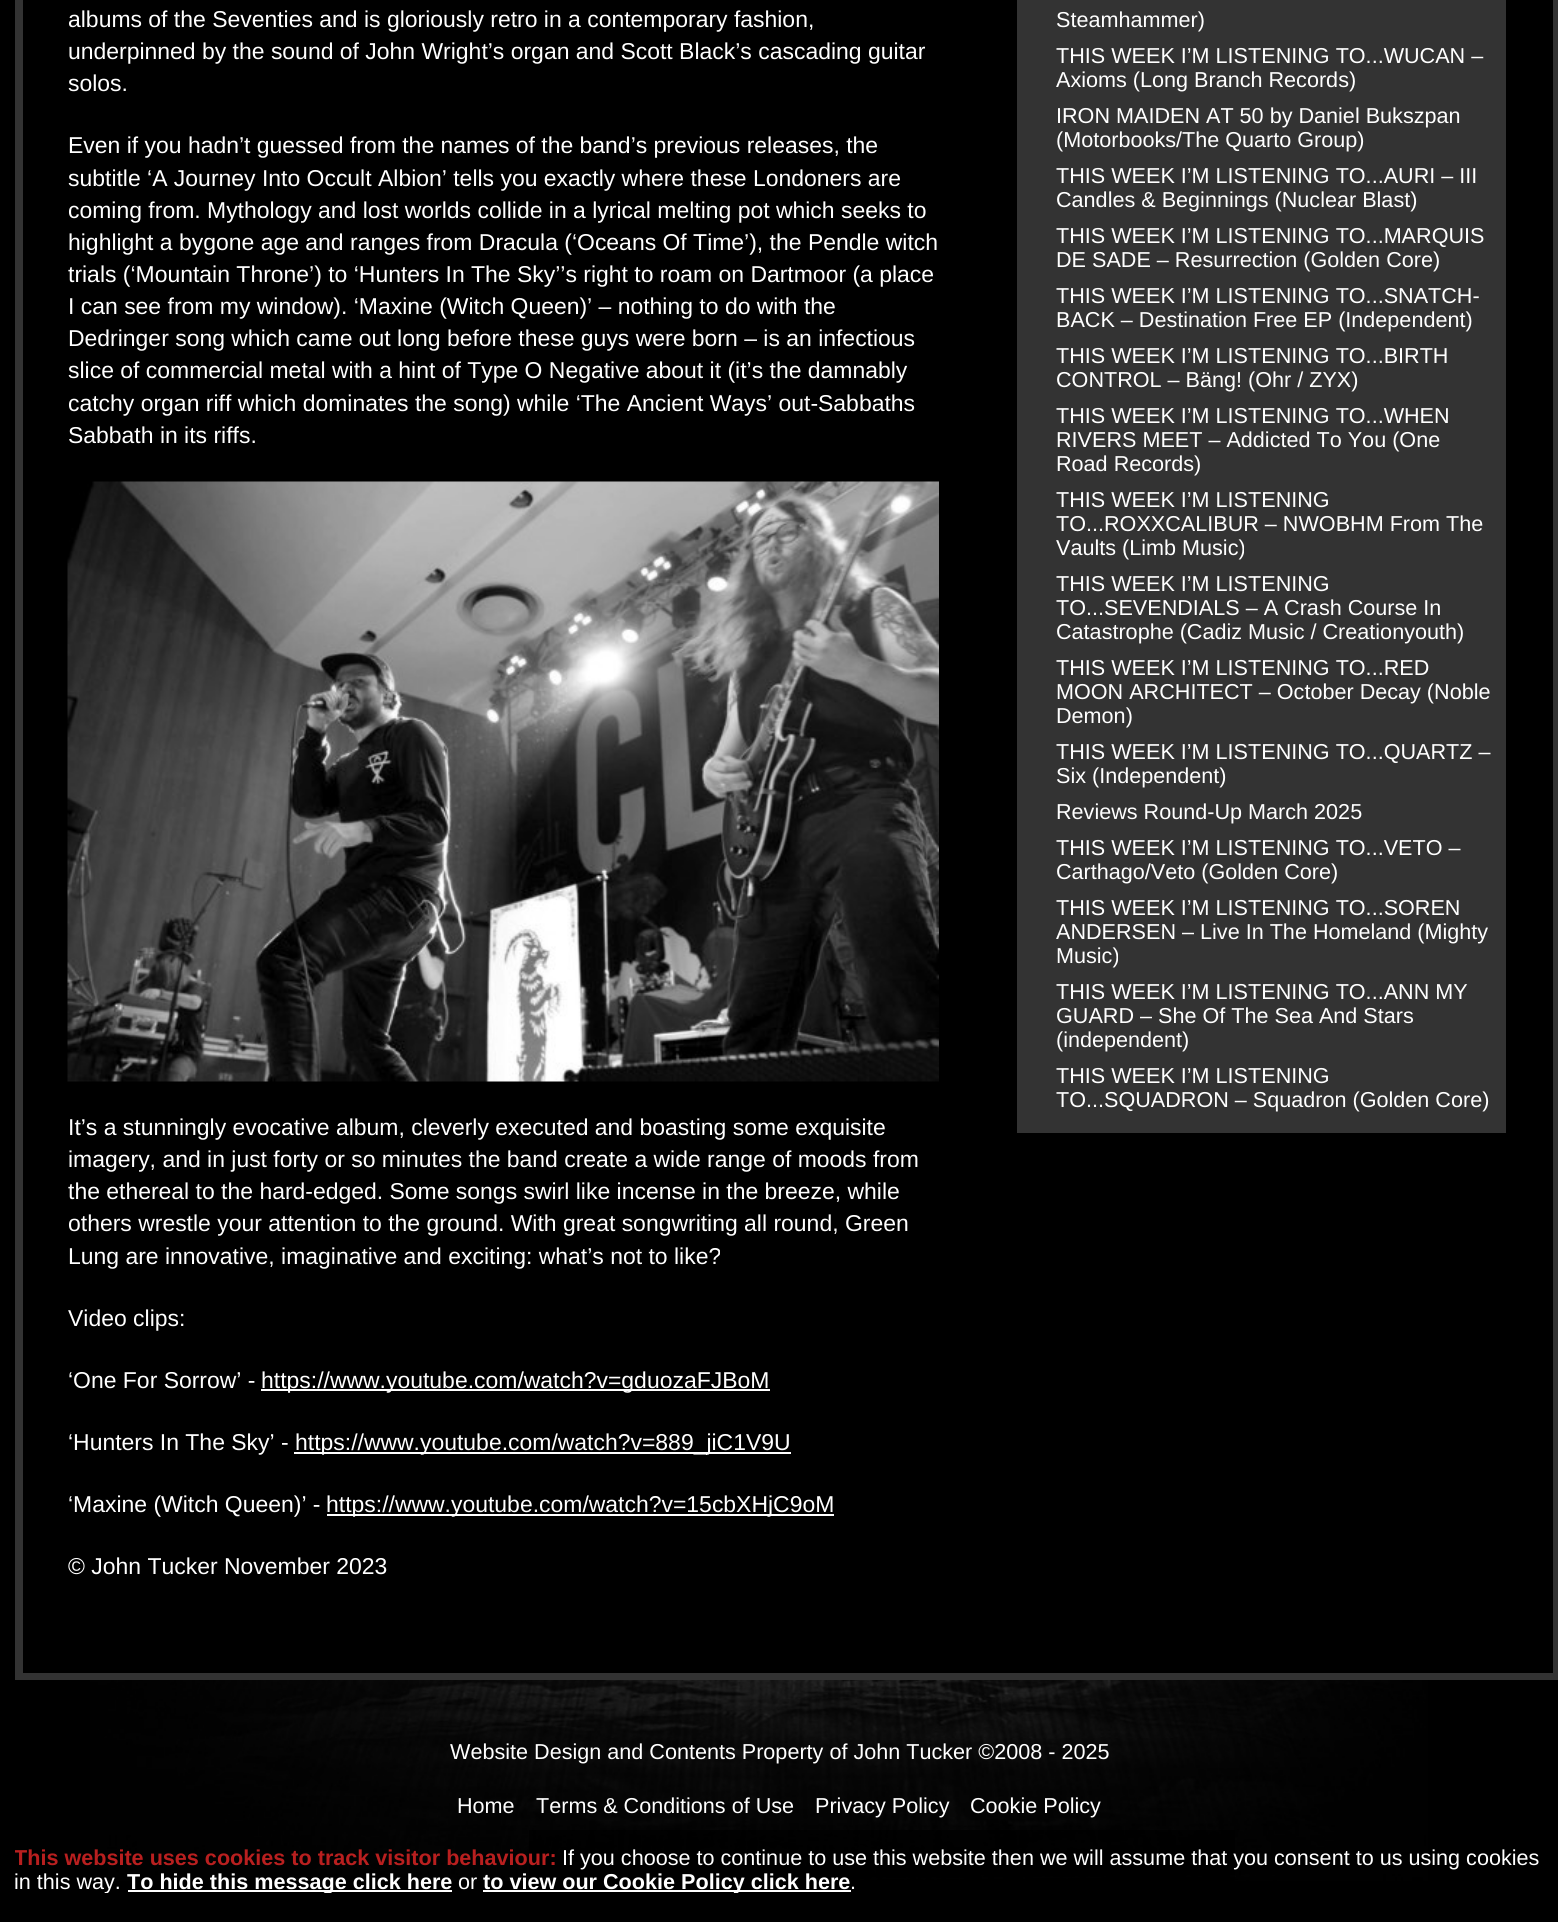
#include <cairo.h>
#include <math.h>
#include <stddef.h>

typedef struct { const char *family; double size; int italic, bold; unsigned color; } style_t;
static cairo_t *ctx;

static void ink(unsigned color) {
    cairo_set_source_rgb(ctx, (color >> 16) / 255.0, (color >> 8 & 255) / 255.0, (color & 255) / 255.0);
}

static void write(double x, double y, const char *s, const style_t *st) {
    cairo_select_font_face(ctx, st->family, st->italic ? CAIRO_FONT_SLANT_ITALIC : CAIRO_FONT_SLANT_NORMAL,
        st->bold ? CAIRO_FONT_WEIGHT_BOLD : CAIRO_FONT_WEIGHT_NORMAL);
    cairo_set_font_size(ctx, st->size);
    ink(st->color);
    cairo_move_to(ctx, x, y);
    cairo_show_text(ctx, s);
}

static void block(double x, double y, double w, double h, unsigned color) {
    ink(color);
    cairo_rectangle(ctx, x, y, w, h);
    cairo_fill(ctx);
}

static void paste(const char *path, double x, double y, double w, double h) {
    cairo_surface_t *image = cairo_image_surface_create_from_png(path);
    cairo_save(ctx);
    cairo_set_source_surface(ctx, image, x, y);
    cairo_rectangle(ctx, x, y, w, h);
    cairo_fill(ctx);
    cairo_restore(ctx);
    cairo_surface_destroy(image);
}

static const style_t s1 = {"Liberation Sans", 22.95, 0, 0, 0xffffff};
static const style_t s2 = {"Liberation Sans", 21.6, 0, 0, 0xffffff};
static const style_t s3 = {"Liberation Sans", 21.6, 0, 1, 0xb91f1f};
static const style_t s4 = {"Liberation Sans", 21.6, 0, 1, 0xffffff};

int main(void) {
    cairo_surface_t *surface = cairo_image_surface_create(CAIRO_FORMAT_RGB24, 1558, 1922);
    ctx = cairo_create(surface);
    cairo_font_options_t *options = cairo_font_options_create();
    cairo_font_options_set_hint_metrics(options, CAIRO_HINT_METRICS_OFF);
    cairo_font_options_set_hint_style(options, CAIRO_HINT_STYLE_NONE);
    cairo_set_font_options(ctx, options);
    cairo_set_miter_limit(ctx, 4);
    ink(0x000000);
    cairo_paint(ctx);
    paste("pic1.png", 90, 1680, 1338, 201);
    block(1553, 0, 5, 1680, 0x333333);
    block(15, 1673, 1543, 7, 0x333333);
    block(15, 0, 8, 1680, 0x333333);
    write(68, 27, "albums of the Seventies and is gloriously retro in a contemporary fashion,", &s1);
    write(68, 59, "underpinned by the sound of John Wright’s organ and Scott Black’s cascading guitar", &s1);
    write(68, 91, "solos.", &s1);
    write(68, 153, "Even if you hadn’t guessed from the names of the band’s previous releases, the", &s1);
    write(68, 186, "subtitle ‘A Journey Into Occult Albion’ tells you exactly where these Londoners are", &s1);
    write(68, 218, "coming from. Mythology and lost worlds collide in a lyrical melting pot which seeks to", &s1);
    write(68, 250, "highlight a bygone age and ranges from Dracula (‘Oceans Of Time’), the Pendle witch", &s1);
    write(68, 282, "trials (‘Mountain Throne’) to ‘Hunters In The Sky’’s right to roam on Dartmoor (a place", &s1);
    write(68, 314, "I can see from my window). ‘Maxine (Witch Queen)’ – nothing to do with the", &s1);
    write(68, 346, "Dedringer song which came out long before these guys were born – is an infectious", &s1);
    write(68, 378, "slice of commercial metal with a hint of Type O Negative about it (it’s the damnably", &s1);
    write(68, 411, "catchy organ riff which dominates the song) while ‘The Ancient Ways’ out-Sabbaths", &s1);
    write(68, 443, "Sabbath in its riffs.", &s1);
    paste("pic2.png", 67, 481, 872, 601);
    write(68, 1135, "It’s a stunningly evocative album, cleverly executed and boasting some exquisite", &s1);
    write(68, 1167, "imagery, and in just forty or so minutes the band create a wide range of moods from", &s1);
    write(68, 1199, "the ethereal to the hard-edged. Some songs swirl like incense in the breeze, while", &s1);
    write(68, 1231, "others wrestle your attention to the ground. With great songwriting all round, Green", &s1);
    write(68, 1264, "Lung are innovative, imaginative and exciting: what’s not to like?", &s1);
    write(68, 1326, "Video clips:", &s1);
    write(68, 1388, "‘One For Sorrow’ -", &s1);
    block(261, 1389, 509, 2, 0xffffff);
    write(261, 1388, "https://www.youtube.com/watch?v=gduozaFJBoM", &s1);
    write(68, 1450, "‘Hunters In The Sky’ -", &s1);
    block(294, 1452, 497, 2, 0xffffff);
    write(295, 1450, "https://www.youtube.com/watch?v=889_jiC1V9U", &s1);
    write(68, 1512, "‘Maxine (Witch Queen)’ -", &s1);
    block(327, 1514, 507, 2, 0xffffff);
    write(326, 1512, "https://www.youtube.com/watch?v=15cbXHjC9oM", &s1);
    write(68, 1574, "© John Tucker November 2023", &s1);
    block(1017, 0, 489, 1133, 0x333333);
    write(1056, 27, "Steamhammer)", &s2);
    write(1056, 63, "THIS WEEK I’M LISTENING TO...WUCAN –", &s2);
    write(1056, 87, "Axioms (Long Branch Records)", &s2);
    write(1056, 123, "IRON MAIDEN AT 50 by Daniel Bukszpan", &s2);
    write(1056, 147, "(Motorbooks/The Quarto Group)", &s2);
    write(1056, 183, "THIS WEEK I’M LISTENING TO...AURI – III", &s2);
    write(1056, 207, "Candles & Beginnings (Nuclear Blast)", &s2);
    write(1056, 243, "THIS WEEK I’M LISTENING TO...MARQUIS", &s2);
    write(1056, 267, "DE SADE – Resurrection (Golden Core)", &s2);
    write(1056, 303, "THIS WEEK I’M LISTENING TO...SNATCH-", &s2);
    write(1056, 327, "BACK – Destination Free EP (Independent)", &s2);
    write(1056, 363, "THIS WEEK I’M LISTENING TO...BIRTH", &s2);
    write(1056, 387, "CONTROL – Bäng! (Ohr / ZYX)", &s2);
    write(1056, 423, "THIS WEEK I’M LISTENING TO...WHEN", &s2);
    write(1056, 447, "RIVERS MEET – Addicted To You (One", &s2);
    write(1056, 471, "Road Records)", &s2);
    write(1056, 507, "THIS WEEK I’M LISTENING", &s2);
    write(1056, 531, "TO...ROXXCALIBUR – NWOBHM From The", &s2);
    write(1056, 555, "Vaults (Limb Music)", &s2);
    write(1056, 591, "THIS WEEK I’M LISTENING", &s2);
    write(1056, 615, "TO...SEVENDIALS – A Crash Course In", &s2);
    write(1056, 639, "Catastrophe (Cadiz Music / Creationyouth)", &s2);
    write(1056, 675, "THIS WEEK I’M LISTENING TO...RED", &s2);
    write(1056, 699, "MOON ARCHITECT – October Decay (Noble", &s2);
    write(1056, 723, "Demon)", &s2);
    write(1056, 759, "THIS WEEK I’M LISTENING TO...QUARTZ –", &s2);
    write(1056, 783, "Six (Independent)", &s2);
    write(1056, 819, "Reviews Round-Up March 2025", &s2);
    write(1056, 855, "THIS WEEK I’M LISTENING TO...VETO –", &s2);
    write(1056, 879, "Carthago/Veto (Golden Core)", &s2);
    write(1056, 915, "THIS WEEK I’M LISTENING TO...SOREN", &s2);
    write(1056, 939, "ANDERSEN – Live In The Homeland (Mighty", &s2);
    write(1056, 963, "Music)", &s2);
    write(1056, 999, "THIS WEEK I’M LISTENING TO...ANN MY", &s2);
    write(1056, 1023, "GUARD – She Of The Sea And Stars", &s2);
    write(1056, 1047, "(independent)", &s2);
    write(1056, 1083, "THIS WEEK I’M LISTENING", &s2);
    write(1056, 1107, "TO...SQUADRON – Squadron (Golden Core)", &s2);
    write(450, 1759, "Website Design and Contents Property of John Tucker ©2008 - 2025", &s2);
    write(457, 1813, "Home", &s2);
    write(536, 1813, "Terms & Conditions of Use", &s2);
    write(815, 1813, "Privacy Policy", &s2);
    write(970, 1813, "Cookie Policy", &s2);
    cairo_set_source_rgba(ctx, 0, 0, 0, 0.87);
    cairo_rectangle(ctx, 529, 1830, 706, 51);
    cairo_fill(ctx);
    cairo_save(ctx);
    cairo_rectangle(ctx, 15, 1845, 1530, 48);
    cairo_clip(ctx);
    write(14, 1865, "This website uses cookies to track visitor behaviour:", &s3);
    cairo_restore(ctx);
    write(562, 1865, "If you choose to continue to use this website then we will assume that you consent to us using cookies", &s2);
    cairo_save(ctx);
    cairo_rectangle(ctx, 15, 1845, 1530, 48);
    cairo_clip(ctx);
    write(14, 1889, "in this way.", &s2);
    cairo_restore(ctx);
    block(128, 1890, 324, 2, 0xffffff);
    cairo_save(ctx);
    cairo_rectangle(ctx, 15, 1845, 1530, 48);
    cairo_clip(ctx);
    write(127, 1889, "To hide this message click here", &s4);
    cairo_restore(ctx);
    write(458, 1889, "or", &s2);
    block(483, 1890, 368, 2, 0xffffff);
    cairo_save(ctx);
    cairo_rectangle(ctx, 15, 1845, 1530, 48);
    cairo_clip(ctx);
    write(483, 1889, "to view our Cookie Policy click here", &s4);
    cairo_restore(ctx);
    write(850, 1889, ".", &s2);
    cairo_surface_write_to_png(surface, "screenshot.png");
    cairo_font_options_destroy(options);
    cairo_destroy(ctx);
    cairo_surface_destroy(surface);
    return 0;
}
